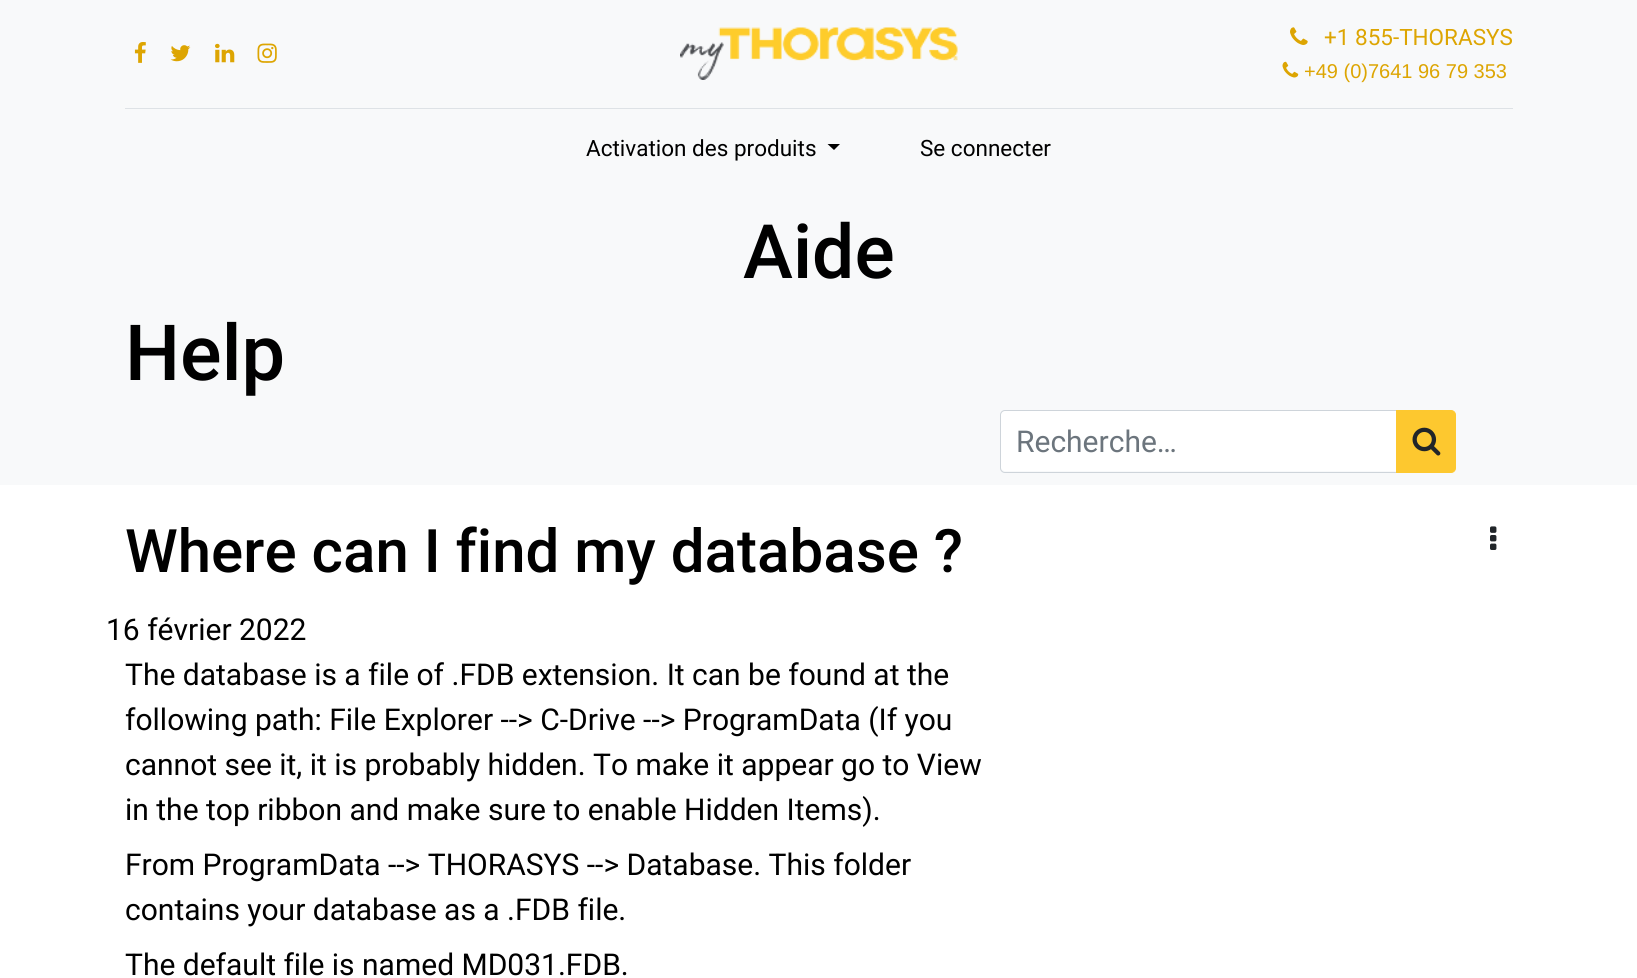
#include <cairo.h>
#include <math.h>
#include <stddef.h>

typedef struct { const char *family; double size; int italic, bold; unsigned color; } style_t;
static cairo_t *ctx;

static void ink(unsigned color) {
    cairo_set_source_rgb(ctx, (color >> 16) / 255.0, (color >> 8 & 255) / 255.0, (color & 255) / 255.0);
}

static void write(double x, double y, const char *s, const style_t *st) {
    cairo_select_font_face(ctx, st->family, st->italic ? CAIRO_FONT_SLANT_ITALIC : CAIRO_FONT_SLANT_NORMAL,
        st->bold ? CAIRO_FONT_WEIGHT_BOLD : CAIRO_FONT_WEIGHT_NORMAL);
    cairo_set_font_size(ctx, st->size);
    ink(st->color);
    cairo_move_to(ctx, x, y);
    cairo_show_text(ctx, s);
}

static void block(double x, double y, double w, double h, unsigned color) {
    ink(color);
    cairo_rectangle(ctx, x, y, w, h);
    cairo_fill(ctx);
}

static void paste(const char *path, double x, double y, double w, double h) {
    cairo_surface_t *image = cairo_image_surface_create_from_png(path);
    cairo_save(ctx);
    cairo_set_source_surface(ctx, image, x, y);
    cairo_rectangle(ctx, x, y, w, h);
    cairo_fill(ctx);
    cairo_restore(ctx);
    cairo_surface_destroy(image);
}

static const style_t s1 = {"Roboto", 22.5, 0, 0, 0xdda502};
static const style_t s2 = {"Liberation Sans", 20, 0, 0, 0xdda502};
static const style_t s3 = {"Roboto", 22.5, 0, 0, 0x000000};
static const style_t s4 = {"Roboto Medium", 75, 0, 0, 0x000000};
static const style_t s5 = {"Roboto Medium", 77.5, 0, 0, 0x000000};
static const style_t s6 = {"Roboto", 30, 0, 0, 0x6c757d};
static const style_t s7 = {"Roboto Medium", 60, 0, 0, 0x000000};
static const style_t s8 = {"Roboto", 30, 0, 0, 0x000000};

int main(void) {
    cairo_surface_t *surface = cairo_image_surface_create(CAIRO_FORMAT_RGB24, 1637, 978);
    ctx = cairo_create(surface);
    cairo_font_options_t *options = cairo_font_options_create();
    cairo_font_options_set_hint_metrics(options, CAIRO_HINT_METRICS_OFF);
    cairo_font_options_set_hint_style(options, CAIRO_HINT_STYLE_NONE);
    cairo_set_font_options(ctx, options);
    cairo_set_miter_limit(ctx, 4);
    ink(0xffffff);
    cairo_paint(ctx);
    block(0, 0, 1637, 485, 0xf8f9fa);
    paste("pic1.png", 134, 42, 12, 21);
    paste("pic2.png", 170, 45, 21, 17);
    paste("pic3.png", 215, 43, 20, 20);
    paste("pic4.png", 257, 43, 20, 20);
    paste("pic5.png", 680, 27, 278, 53);
    paste("pic6.png", 1290, 27, 18, 18);
    write(1324, 45, "+1 855-THORASYS", &s1);
    paste("pic7.png", 1282, 61, 17, 17);
    write(1304, 78, "+49 (0)7641 96 79 353", &s2);
    block(125, 108, 1388, 1, 0xdee2e6);
    write(586, 156, "Activation des produits", &s3);
    cairo_new_path(ctx);
    cairo_move_to(ctx, 827.5, 144);
    cairo_line_to(ctx, 840, 144);
    cairo_line_to(ctx, 834, 150);
    cairo_close_path(ctx);
    cairo_fill(ctx);
    write(920, 156, "Se connecter", &s3);
    write(743, 278, "Aide", &s4);
    write(125, 380, "Help", &s5);
    ink(0xffffff);
    cairo_new_path(ctx);
    cairo_move_to(ctx, 1005, 411);
    cairo_line_to(ctx, 1396, 411);
    cairo_line_to(ctx, 1396, 471);
    cairo_line_to(ctx, 1005, 471);
    cairo_curve_to(ctx, 1003, 471, 1001, 469, 1001, 467);
    cairo_line_to(ctx, 1001, 415);
    cairo_curve_to(ctx, 1001, 413, 1003, 411, 1005, 411);
    cairo_close_path(ctx);
    cairo_fill(ctx);
    cairo_new_path(ctx);
    cairo_move_to(ctx, 1005, 410.5);
    cairo_line_to(ctx, 1397.5, 410.5);
    cairo_line_to(ctx, 1397.5, 472.5);
    cairo_line_to(ctx, 1005, 472.5);
    cairo_curve_to(ctx, 1002.5, 472.5, 1000.5, 470.5, 1000.5, 468);
    cairo_line_to(ctx, 1000.5, 415);
    cairo_curve_to(ctx, 1000.5, 412.5, 1002.5, 410.5, 1005, 410.5);
    cairo_close_path(ctx);
    ink(0xced4da);
    cairo_set_line_width(ctx, 1);
    cairo_stroke(ctx);
    write(1016, 452, "Recherche…", &s6);
    ink(0xfdc82f);
    cairo_new_path(ctx);
    cairo_move_to(ctx, 1396.5, 410.5);
    cairo_line_to(ctx, 1451, 410.5);
    cairo_curve_to(ctx, 1453.5, 410.5, 1455.5, 412.5, 1455.5, 415);
    cairo_line_to(ctx, 1455.5, 468);
    cairo_curve_to(ctx, 1455.5, 470.5, 1453.5, 472.5, 1451, 472.5);
    cairo_line_to(ctx, 1396.5, 472.5);
    cairo_close_path(ctx);
    cairo_fill_preserve(ctx);
    cairo_stroke(ctx);
    paste("pic8.png", 1412, 427, 29, 29);
    write(125, 572, "Where can I find my database ?", &s7);
    paste("pic9.png", 1490, 526, 7, 24);
    write(106, 640, "16 février 2022", &s8);
    write(125, 685, "The database is a file of .FDB extension. It can be found at the", &s8);
    write(125, 730, "following path: File Explorer --> C-Drive --> ProgramData (If you", &s8);
    write(125, 775, "cannot see it, it is probably hidden. To make it appear go to View", &s8);
    write(125, 820, "in the top ribbon and make sure to enable Hidden Items).", &s8);
    write(125, 875, "From ProgramData --> THORASYS --> Database. This folder", &s8);
    write(125, 920, "contains your database as a .FDB file.", &s8);
    write(125, 975, "The default file is named MD031.FDB.", &s8);
    cairo_surface_write_to_png(surface, "screenshot.png");
    cairo_font_options_destroy(options);
    cairo_destroy(ctx);
    cairo_surface_destroy(surface);
    return 0;
}
